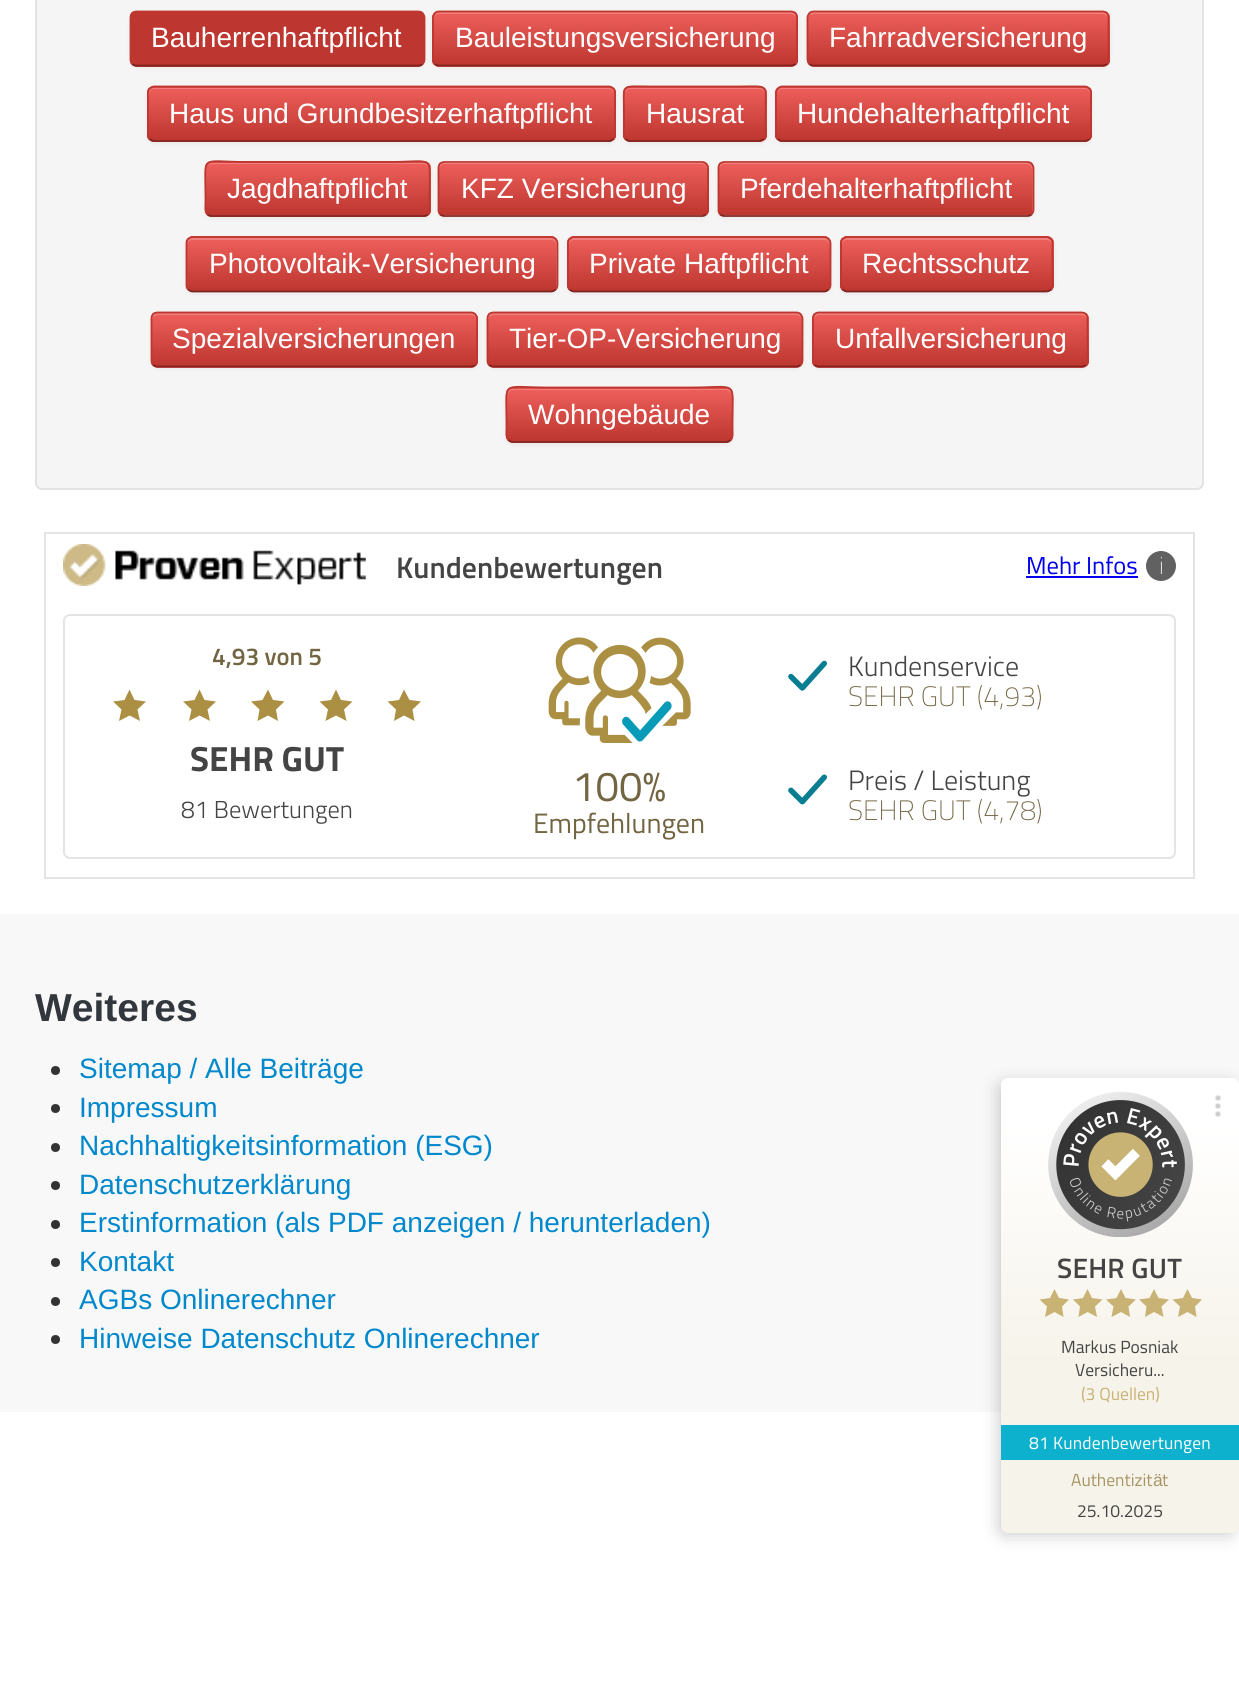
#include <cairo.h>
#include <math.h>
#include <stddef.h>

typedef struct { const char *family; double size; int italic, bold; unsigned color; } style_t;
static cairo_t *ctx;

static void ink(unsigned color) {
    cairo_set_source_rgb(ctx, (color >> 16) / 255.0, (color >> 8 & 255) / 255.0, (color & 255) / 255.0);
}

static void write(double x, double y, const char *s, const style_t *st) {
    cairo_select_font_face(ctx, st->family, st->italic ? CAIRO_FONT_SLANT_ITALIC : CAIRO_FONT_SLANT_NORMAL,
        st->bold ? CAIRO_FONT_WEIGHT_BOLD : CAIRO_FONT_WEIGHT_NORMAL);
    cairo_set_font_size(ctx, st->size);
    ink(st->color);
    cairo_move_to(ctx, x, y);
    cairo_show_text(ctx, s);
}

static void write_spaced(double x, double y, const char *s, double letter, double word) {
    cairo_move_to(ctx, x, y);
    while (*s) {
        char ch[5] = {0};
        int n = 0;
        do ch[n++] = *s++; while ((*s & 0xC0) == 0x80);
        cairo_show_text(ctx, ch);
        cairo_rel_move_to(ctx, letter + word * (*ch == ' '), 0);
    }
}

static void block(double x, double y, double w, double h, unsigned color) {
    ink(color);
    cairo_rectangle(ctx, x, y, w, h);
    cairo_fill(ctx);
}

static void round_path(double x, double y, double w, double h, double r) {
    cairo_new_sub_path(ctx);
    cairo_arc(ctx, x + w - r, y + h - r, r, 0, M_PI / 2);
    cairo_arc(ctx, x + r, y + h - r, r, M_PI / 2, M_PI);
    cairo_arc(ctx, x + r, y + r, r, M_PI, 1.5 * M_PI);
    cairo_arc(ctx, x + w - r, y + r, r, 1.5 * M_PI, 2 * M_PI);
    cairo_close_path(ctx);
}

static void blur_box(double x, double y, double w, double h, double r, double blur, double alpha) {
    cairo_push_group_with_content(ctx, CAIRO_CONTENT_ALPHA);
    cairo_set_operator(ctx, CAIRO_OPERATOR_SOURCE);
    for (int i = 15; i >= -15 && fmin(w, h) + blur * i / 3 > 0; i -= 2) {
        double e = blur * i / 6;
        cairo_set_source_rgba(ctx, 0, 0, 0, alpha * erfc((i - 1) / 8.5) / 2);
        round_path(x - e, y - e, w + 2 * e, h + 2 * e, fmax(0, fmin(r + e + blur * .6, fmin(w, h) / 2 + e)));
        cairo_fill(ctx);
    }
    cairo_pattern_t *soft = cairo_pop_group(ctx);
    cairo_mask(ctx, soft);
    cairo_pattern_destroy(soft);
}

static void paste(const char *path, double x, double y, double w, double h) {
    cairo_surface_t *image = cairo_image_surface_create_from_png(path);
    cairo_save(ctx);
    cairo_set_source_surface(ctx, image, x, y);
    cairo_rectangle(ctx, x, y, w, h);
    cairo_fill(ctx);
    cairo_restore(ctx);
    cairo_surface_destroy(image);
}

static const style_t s1 = {"Liberation Sans", 28, 0, 0, 0xffffff};
static const style_t s2 = {"Titillium Web SemiBold", 29.75, 0, 0, 0x444444};
static const style_t s3 = {"Titillium Web", 24.5, 0, 0, 0x0000ee};
static const style_t s4 = {"Titillium Web ExtraLight", 24.5, 0, 0, 0xffffff};
static const style_t s5 = {"Titillium Web SemiBold", 24.5, 0, 0, 0x726542};
static const style_t s6 = {"Titillium Web", 35, 0, 1, 0x444444};
static const style_t s7 = {"Titillium Web Light", 24.5, 0, 0, 0x444444};
static const style_t s8 = {"Titillium Web", 42, 0, 0, 0x726542};
static const style_t s9 = {"Titillium Web", 28, 0, 0, 0x726542};
static const style_t s10 = {"Titillium Web Light", 28, 0, 0, 0x444444};
static const style_t s11 = {"Titillium Web ExtraLight", 28, 0, 0, 0x726542};
static const style_t s12 = {"Liberation Sans", 39, 0, 1, 0x32373d};
static const style_t s13 = {"Liberation Sans", 28, 0, 0, 0x0088cc};
static const style_t s14 = {"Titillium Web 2", 17.5, 0, 0, 0x444444};
static const style_t s15 = {"Titillium Web 2", 17.5, 0, 0, 0xc8b274};
static const style_t s16 = {"Titillium Web 2", 17.5, 0, 0, 0xa79563};
static const style_t s17 = {"Liberation Sans", 17.5, 0, 0, 0xa79563};

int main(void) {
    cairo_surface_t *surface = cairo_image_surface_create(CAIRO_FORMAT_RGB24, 1239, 1686);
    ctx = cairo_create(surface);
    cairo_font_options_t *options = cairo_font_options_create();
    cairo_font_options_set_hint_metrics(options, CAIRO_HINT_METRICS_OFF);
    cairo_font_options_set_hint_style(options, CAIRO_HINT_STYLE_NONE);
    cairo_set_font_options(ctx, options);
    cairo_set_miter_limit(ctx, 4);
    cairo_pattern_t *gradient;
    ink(0xffffff);
    cairo_paint(ctx);
    ink(0xf5f5f5);
    round_path(36, -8, 1167, 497, 6);
    cairo_fill_preserve(ctx);
    ink(0xe3e3e3);
    cairo_stroke(ctx);
    ink(0x000000);
    blur_box(130, 12, 295, 56, 7, 2, 0.05);
    ink(0xbd362f);
    round_path(130, 11, 295, 56, 7);
    cairo_fill(ctx);
    cairo_new_path(ctx);
    cairo_move_to(ctx, 422.5, 64);
    cairo_curve_to(ctx, 421.5, 65, 420, 65.5, 418, 65.5);
    cairo_line_to(ctx, 136.5, 65.5);
    cairo_curve_to(ctx, 135, 65.5, 133.5, 65, 132, 64);
    ink(0x802420);
    cairo_set_line_width(ctx, 1.8);
    cairo_stroke(ctx);
    cairo_new_path(ctx);
    cairo_move_to(ctx, 132, 64);
    cairo_curve_to(ctx, 131, 62.5, 130.5, 61, 130.5, 59.5);
    cairo_line_to(ctx, 130.5, 17.5);
    cairo_curve_to(ctx, 130.5, 16, 131, 14.5, 132, 13);
    cairo_curve_to(ctx, 133.5, 12, 135, 11.5, 136.5, 11.5);
    cairo_line_to(ctx, 418, 11.5);
    cairo_curve_to(ctx, 420, 11.5, 421.5, 12, 422.5, 13);
    cairo_curve_to(ctx, 423.5, 14.5, 424.5, 16, 424.5, 17.5);
    cairo_line_to(ctx, 424.5, 59.5);
    cairo_curve_to(ctx, 424.5, 61, 423.5, 62.5, 422.5, 64);
    ink(0xbd362f);
    cairo_stroke(ctx);
    write(151, 47, "Bauherrenhaftpflicht", &s1);
    ink(0x000000);
    blur_box(432, 12, 366, 56, 7, 2, 0.05);
    ink(0xda4f49);
    round_path(432, 11, 366, 56, 7);
    cairo_fill(ctx);
    cairo_save(ctx);
    round_path(432, 11, 366, 56, 7);
    cairo_clip(ctx);
    gradient = cairo_pattern_create_linear(615, 12, 615, 65);
    cairo_pattern_add_color_stop_rgba(gradient, 0, 0.933, 0.373, 0.357, 1);
    cairo_pattern_add_color_stop_rgba(gradient, 1, 0.741, 0.212, 0.184, 1);
    cairo_set_source(ctx, gradient);
    cairo_pattern_destroy(gradient);
    cairo_rectangle(ctx, 432, 12, 366, 53);
    cairo_fill(ctx);
    cairo_restore(ctx);
    ink(0xf17f7b);
    cairo_new_path(ctx);
    cairo_move_to(ctx, 439, 14);
    cairo_line_to(ctx, 791, 14);
    cairo_curve_to(ctx, 794, 14, 796, 16, 796, 19);
    cairo_curve_to(ctx, 796, 16, 795, 12, 791, 12);
    cairo_line_to(ctx, 439, 12);
    cairo_curve_to(ctx, 435, 12, 434, 16, 434, 19);
    cairo_curve_to(ctx, 434, 16, 436, 14, 439, 14);
    cairo_close_path(ctx);
    cairo_fill(ctx);
    cairo_new_path(ctx);
    cairo_move_to(ctx, 795.5, 64);
    cairo_curve_to(ctx, 794, 65, 792.5, 65.5, 791, 65.5);
    cairo_line_to(ctx, 439, 65.5);
    cairo_curve_to(ctx, 437.5, 65.5, 436, 65, 435, 64);
    ink(0x802420);
    cairo_stroke(ctx);
    cairo_new_path(ctx);
    cairo_move_to(ctx, 435, 64);
    cairo_curve_to(ctx, 434, 62.5, 433, 61, 433, 59.5);
    cairo_line_to(ctx, 433, 17.5);
    cairo_curve_to(ctx, 433, 16, 434, 14.5, 435, 13);
    cairo_curve_to(ctx, 436, 12, 437.5, 11.5, 439, 11.5);
    cairo_line_to(ctx, 791, 11.5);
    cairo_curve_to(ctx, 792.5, 11.5, 794, 12, 795.5, 13);
    cairo_curve_to(ctx, 796.5, 14.5, 797, 16, 797, 17.5);
    cairo_line_to(ctx, 797, 59.5);
    cairo_curve_to(ctx, 797, 61, 796.5, 62.5, 795.5, 64);
    ink(0xbd362f);
    cairo_stroke(ctx);
    write(455, 47, "Bauleistungsversicherung", &s1);
    ink(0x000000);
    blur_box(807, 12, 303, 56, 7, 2, 0.05);
    ink(0xda4f49);
    round_path(807, 11, 303, 56, 7);
    cairo_fill(ctx);
    cairo_save(ctx);
    round_path(807, 11, 303, 56, 7);
    cairo_clip(ctx);
    gradient = cairo_pattern_create_linear(958, 12, 958, 65);
    cairo_pattern_add_color_stop_rgba(gradient, 0, 0.933, 0.373, 0.357, 1);
    cairo_pattern_add_color_stop_rgba(gradient, 1, 0.741, 0.212, 0.184, 1);
    cairo_set_source(ctx, gradient);
    cairo_pattern_destroy(gradient);
    cairo_rectangle(ctx, 807, 12, 303, 53);
    cairo_fill(ctx);
    cairo_restore(ctx);
    cairo_set_source_rgba(ctx, 1, 1, 1, 0.2);
    cairo_new_path(ctx);
    cairo_move_to(ctx, 814, 14);
    cairo_line_to(ctx, 1102, 14);
    cairo_curve_to(ctx, 1105, 14, 1108, 16, 1108, 19);
    cairo_line_to(ctx, 1108, 17);
    cairo_curve_to(ctx, 1108, 14, 1106, 12, 1103, 12);
    cairo_line_to(ctx, 814, 12);
    cairo_curve_to(ctx, 812, 12, 809, 14, 809, 16);
    cairo_curve_to(ctx, 810, 15, 812, 14, 814, 14);
    cairo_close_path(ctx);
    cairo_fill(ctx);
    cairo_new_path(ctx);
    cairo_move_to(ctx, 1107, 64);
    cairo_curve_to(ctx, 1105.5, 65, 1104, 65.5, 1102.5, 65.5);
    cairo_line_to(ctx, 814, 65.5);
    cairo_curve_to(ctx, 812, 65.5, 810.5, 65, 809.5, 64);
    ink(0x802420);
    cairo_stroke(ctx);
    cairo_new_path(ctx);
    cairo_move_to(ctx, 809.5, 64);
    cairo_curve_to(ctx, 808.5, 62.5, 807.5, 61, 807.5, 59.5);
    cairo_line_to(ctx, 807.5, 17.5);
    cairo_curve_to(ctx, 807.5, 16, 808.5, 14.5, 809.5, 13);
    cairo_curve_to(ctx, 810.5, 12, 812, 11.5, 814, 11.5);
    cairo_line_to(ctx, 1102.5, 11.5);
    cairo_curve_to(ctx, 1104, 11.5, 1105.5, 12, 1107, 13);
    cairo_curve_to(ctx, 1108, 14.5, 1108.5, 16, 1108.5, 17.5);
    cairo_line_to(ctx, 1108.5, 59.5);
    cairo_curve_to(ctx, 1108.5, 61, 1108, 62.5, 1107, 64);
    ink(0xbd362f);
    cairo_stroke(ctx);
    write(829, 47, "Fahrradversicherung", &s1);
    ink(0x000000);
    blur_box(147, 88, 469, 56, 7, 2, 0.05);
    ink(0xda4f49);
    round_path(147, 86, 469, 56, 7);
    cairo_fill(ctx);
    cairo_save(ctx);
    round_path(147, 86, 469, 56, 7);
    cairo_clip(ctx);
    gradient = cairo_pattern_create_linear(382, 87, 382, 140);
    cairo_pattern_add_color_stop_rgba(gradient, 0, 0.933, 0.373, 0.357, 1);
    cairo_pattern_add_color_stop_rgba(gradient, 1, 0.741, 0.212, 0.184, 1);
    cairo_set_source(ctx, gradient);
    cairo_pattern_destroy(gradient);
    cairo_rectangle(ctx, 147, 88, 469, 52);
    cairo_fill(ctx);
    cairo_restore(ctx);
    ink(0xf17e7b);
    cairo_new_path(ctx);
    cairo_move_to(ctx, 154, 89);
    cairo_line_to(ctx, 609, 89);
    cairo_curve_to(ctx, 612, 89, 614, 92, 614, 94);
    cairo_curve_to(ctx, 614, 91, 612, 88, 609, 88);
    cairo_line_to(ctx, 154, 88);
    cairo_curve_to(ctx, 151, 88, 149, 91, 149, 94);
    cairo_curve_to(ctx, 149, 92, 151, 89, 154, 89);
    cairo_close_path(ctx);
    cairo_fill(ctx);
    cairo_new_path(ctx);
    cairo_move_to(ctx, 613.5, 139);
    cairo_curve_to(ctx, 612, 140, 610.5, 141, 609, 141);
    cairo_line_to(ctx, 154, 141);
    cairo_curve_to(ctx, 152.5, 141, 151, 140, 149.5, 139);
    ink(0x802420);
    cairo_stroke(ctx);
    cairo_new_path(ctx);
    cairo_move_to(ctx, 149.5, 139);
    cairo_curve_to(ctx, 148.5, 138, 148, 136.5, 148, 135);
    cairo_line_to(ctx, 148, 93);
    cairo_curve_to(ctx, 148, 91, 148.5, 89.5, 149.5, 88.5);
    cairo_curve_to(ctx, 151, 87.5, 152.5, 86.5, 154, 86.5);
    cairo_line_to(ctx, 609, 86.5);
    cairo_curve_to(ctx, 610.5, 86.5, 612, 87.5, 613.5, 88.5);
    cairo_curve_to(ctx, 614.5, 89.5, 615, 91, 615, 93);
    cairo_line_to(ctx, 615, 135);
    cairo_curve_to(ctx, 615, 136.5, 614.5, 138, 613.5, 139);
    ink(0xbd362f);
    cairo_stroke(ctx);
    write(169, 123, "Haus und Grundbesitzerhaftpflicht", &s1);
    ink(0x000000);
    blur_box(623, 88, 144, 56, 7, 2, 0.05);
    ink(0xda4f49);
    round_path(623, 86, 144, 56, 7);
    cairo_fill(ctx);
    cairo_save(ctx);
    round_path(623, 86, 144, 56, 7);
    cairo_clip(ctx);
    gradient = cairo_pattern_create_linear(695, 87, 695, 140);
    cairo_pattern_add_color_stop_rgba(gradient, 0, 0.933, 0.373, 0.357, 1);
    cairo_pattern_add_color_stop_rgba(gradient, 1, 0.741, 0.212, 0.184, 1);
    cairo_set_source(ctx, gradient);
    cairo_pattern_destroy(gradient);
    cairo_rectangle(ctx, 623, 88, 144, 52);
    cairo_fill(ctx);
    cairo_restore(ctx);
    cairo_set_source_rgba(ctx, 1, 1, 1, 0.2);
    cairo_new_path(ctx);
    cairo_move_to(ctx, 630, 89);
    cairo_line_to(ctx, 760, 89);
    cairo_curve_to(ctx, 762, 89, 765, 92, 765, 94);
    cairo_line_to(ctx, 765, 93);
    cairo_curve_to(ctx, 765, 90, 763, 88, 760, 88);
    cairo_line_to(ctx, 630, 88);
    cairo_curve_to(ctx, 627, 88, 625, 90, 625, 93);
    cairo_line_to(ctx, 625, 94);
    cairo_curve_to(ctx, 625, 92, 627, 89, 630, 89);
    cairo_close_path(ctx);
    cairo_fill(ctx);
    cairo_new_path(ctx);
    cairo_move_to(ctx, 764, 139);
    cairo_line_to(ctx, 760, 141);
    cairo_line_to(ctx, 629.5, 141);
    cairo_curve_to(ctx, 628, 140.5, 626.5, 140, 625.5, 139);
    ink(0x802420);
    cairo_stroke(ctx);
    cairo_new_path(ctx);
    cairo_move_to(ctx, 625.5, 139);
    cairo_curve_to(ctx, 623, 136, 624, 131, 624, 128);
    cairo_line_to(ctx, 624, 114);
    cairo_curve_to(ctx, 624, 82.5, 619, 86.5, 651.5, 86.5);
    cairo_line_to(ctx, 738, 86.5);
    cairo_curve_to(ctx, 770.5, 86.5, 765.5, 82.5, 765.5, 114);
    cairo_line_to(ctx, 765.5, 128);
    cairo_curve_to(ctx, 765.5, 131, 766.5, 136, 764, 139);
    ink(0xbd362f);
    cairo_stroke(ctx);
    write(646, 123, "Hausrat", &s1);
    ink(0x000000);
    blur_box(775, 88, 317, 56, 7, 2, 0.05);
    ink(0xda4f49);
    round_path(775, 86, 317, 56, 7);
    cairo_fill(ctx);
    cairo_save(ctx);
    round_path(775, 86, 317, 56, 7);
    cairo_clip(ctx);
    gradient = cairo_pattern_create_linear(934, 87, 934, 140);
    cairo_pattern_add_color_stop_rgba(gradient, 0, 0.933, 0.373, 0.357, 1);
    cairo_pattern_add_color_stop_rgba(gradient, 1, 0.741, 0.212, 0.184, 1);
    cairo_set_source(ctx, gradient);
    cairo_pattern_destroy(gradient);
    cairo_rectangle(ctx, 775, 88, 317, 52);
    cairo_fill(ctx);
    cairo_restore(ctx);
    ink(0xf17e7b);
    cairo_new_path(ctx);
    cairo_move_to(ctx, 782, 89);
    cairo_line_to(ctx, 1085, 89);
    cairo_curve_to(ctx, 1088, 89, 1090, 92, 1090, 94);
    cairo_curve_to(ctx, 1090, 91, 1088, 88, 1085, 88);
    cairo_line_to(ctx, 782, 88);
    cairo_curve_to(ctx, 779, 88, 777, 91, 777, 94);
    cairo_curve_to(ctx, 777, 92, 779, 89, 782, 89);
    cairo_close_path(ctx);
    cairo_fill(ctx);
    cairo_new_path(ctx);
    cairo_move_to(ctx, 1089.5, 139);
    cairo_curve_to(ctx, 1088, 140, 1086.5, 141, 1085, 141);
    cairo_line_to(ctx, 782, 141);
    cairo_curve_to(ctx, 780.5, 141, 779, 140, 778, 139);
    ink(0x802420);
    cairo_stroke(ctx);
    cairo_new_path(ctx);
    cairo_move_to(ctx, 778, 139);
    cairo_curve_to(ctx, 777, 138, 776, 136.5, 776, 135);
    cairo_line_to(ctx, 776, 93);
    cairo_curve_to(ctx, 776, 91, 777, 89.5, 778, 88.5);
    cairo_curve_to(ctx, 779, 87.5, 780.5, 86.5, 782, 86.5);
    cairo_line_to(ctx, 1085, 86.5);
    cairo_curve_to(ctx, 1086.5, 86.5, 1088, 87.5, 1089.5, 88.5);
    cairo_curve_to(ctx, 1090.5, 89.5, 1091, 91, 1091, 93);
    cairo_line_to(ctx, 1091, 135);
    cairo_curve_to(ctx, 1091, 136.5, 1090.5, 138, 1089.5, 139);
    ink(0xbd362f);
    cairo_stroke(ctx);
    write(797, 123, "Hundehalterhaftpflicht", &s1);
    ink(0x000000);
    blur_box(205, 163, 226, 56, 7, 2, 0.05);
    ink(0xda4f49);
    round_path(205, 161, 226, 56, 7);
    cairo_fill(ctx);
    cairo_save(ctx);
    round_path(205, 161, 226, 56, 7);
    cairo_clip(ctx);
    gradient = cairo_pattern_create_linear(318, 163, 318, 215);
    cairo_pattern_add_color_stop_rgba(gradient, 0, 0.933, 0.373, 0.357, 1);
    cairo_pattern_add_color_stop_rgba(gradient, 1, 0.741, 0.212, 0.184, 1);
    cairo_set_source(ctx, gradient);
    cairo_pattern_destroy(gradient);
    cairo_rectangle(ctx, 205, 163, 226, 52);
    cairo_fill(ctx);
    cairo_restore(ctx);
    cairo_set_source_rgba(ctx, 1, 1, 1, 0.2);
    cairo_new_path(ctx);
    cairo_move_to(ctx, 212, 164);
    cairo_line_to(ctx, 424, 164);
    cairo_curve_to(ctx, 426, 164, 429, 167, 429, 170);
    cairo_line_to(ctx, 429, 168);
    cairo_curve_to(ctx, 429, 165, 427, 163, 424, 163);
    cairo_line_to(ctx, 212, 163);
    cairo_curve_to(ctx, 210, 163, 208, 165, 207, 167);
    cairo_curve_to(ctx, 208, 165, 210, 164, 212, 164);
    cairo_close_path(ctx);
    cairo_fill(ctx);
    cairo_new_path(ctx);
    cairo_move_to(ctx, 428, 214.5);
    cairo_curve_to(ctx, 426.5, 215.5, 425, 216, 423.5, 216);
    cairo_line_to(ctx, 212, 216);
    cairo_curve_to(ctx, 210, 216, 208.5, 215.5, 207.5, 214.5);
    ink(0x802420);
    cairo_stroke(ctx);
    cairo_new_path(ctx);
    cairo_move_to(ctx, 207.5, 214.5);
    cairo_curve_to(ctx, 204.5, 211.5, 205.5, 206.5, 205.5, 203);
    cairo_line_to(ctx, 205.5, 196);
    cairo_curve_to(ctx, 205.5, 153, 199, 162, 247, 162);
    cairo_line_to(ctx, 388, 162);
    cairo_curve_to(ctx, 436, 162, 429.5, 153, 429.5, 196);
    cairo_line_to(ctx, 429.5, 203);
    cairo_curve_to(ctx, 429.5, 206.5, 430.5, 211.5, 428, 214.5);
    ink(0xbd362f);
    cairo_stroke(ctx);
    write(227, 198, "Jagdhaftpflicht", &s1);
    ink(0x000000);
    blur_box(438, 163, 271, 56, 7, 2, 0.05);
    cairo_save(ctx);
    round_path(438, 161, 271, 56, 7);
    cairo_clip(ctx);
    gradient = cairo_pattern_create_linear(573, 163, 573, 215);
    cairo_pattern_add_color_stop_rgba(gradient, 0, 0.933, 0.373, 0.357, 1);
    cairo_pattern_add_color_stop_rgba(gradient, 1, 0.741, 0.212, 0.184, 1);
    cairo_set_source(ctx, gradient);
    cairo_pattern_destroy(gradient);
    cairo_rectangle(ctx, 438, 163, 271, 52);
    cairo_fill(ctx);
    cairo_restore(ctx);
    cairo_set_source_rgba(ctx, 1, 1, 1, 0.2);
    cairo_new_path(ctx);
    cairo_move_to(ctx, 444, 164);
    cairo_line_to(ctx, 702, 164);
    cairo_curve_to(ctx, 705, 164, 707, 167, 707, 170);
    cairo_line_to(ctx, 707, 168);
    cairo_curve_to(ctx, 707, 165, 705, 163, 702, 163);
    cairo_line_to(ctx, 444, 163);
    cairo_curve_to(ctx, 441, 163, 439, 165, 439, 168);
    cairo_line_to(ctx, 439, 170);
    cairo_curve_to(ctx, 439, 167, 442, 164, 444, 164);
    cairo_close_path(ctx);
    cairo_fill(ctx);
    cairo_new_path(ctx);
    cairo_move_to(ctx, 706, 214.5);
    cairo_curve_to(ctx, 705, 215.5, 703.5, 216, 702, 216);
    cairo_line_to(ctx, 444.5, 216);
    cairo_curve_to(ctx, 443, 216, 441.5, 215.5, 440, 214.5);
    ink(0x802420);
    cairo_stroke(ctx);
    cairo_new_path(ctx);
    cairo_move_to(ctx, 440, 214.5);
    cairo_curve_to(ctx, 439, 213, 438.5, 211.5, 438.5, 210);
    cairo_line_to(ctx, 438.5, 168);
    cairo_curve_to(ctx, 438.5, 166.5, 439, 165, 440, 163.5);
    cairo_curve_to(ctx, 441.5, 162.5, 443, 162, 444.5, 162);
    cairo_line_to(ctx, 702, 162);
    cairo_curve_to(ctx, 703.5, 162, 705, 162.5, 706, 163.5);
    cairo_curve_to(ctx, 707, 165, 708, 166.5, 708, 168);
    cairo_line_to(ctx, 708, 210);
    cairo_curve_to(ctx, 708, 211.5, 707, 213, 706, 214.5);
    ink(0xbd362f);
    cairo_stroke(ctx);
    write(461, 198, "KFZ Versicherung", &s1);
    ink(0x000000);
    blur_box(718, 163, 316, 56, 7, 2, 0.05);
    cairo_save(ctx);
    round_path(718, 161, 316, 56, 7);
    cairo_clip(ctx);
    gradient = cairo_pattern_create_linear(876, 163, 876, 215);
    cairo_pattern_add_color_stop_rgba(gradient, 0, 0.933, 0.373, 0.357, 1);
    cairo_pattern_add_color_stop_rgba(gradient, 1, 0.741, 0.212, 0.184, 1);
    cairo_set_source(ctx, gradient);
    cairo_pattern_destroy(gradient);
    cairo_rectangle(ctx, 718, 163, 316, 52);
    cairo_fill(ctx);
    cairo_restore(ctx);
    cairo_set_source_rgba(ctx, 1, 1, 1, 0.2);
    cairo_new_path(ctx);
    cairo_move_to(ctx, 724, 164);
    cairo_line_to(ctx, 1027, 164);
    cairo_curve_to(ctx, 1030, 164, 1032, 167, 1032, 170);
    cairo_line_to(ctx, 1032, 213);
    cairo_curve_to(ctx, 1033, 212, 1033, 211, 1033, 210);
    cairo_line_to(ctx, 1033, 168);
    cairo_curve_to(ctx, 1033, 165, 1031, 163, 1028, 163);
    cairo_line_to(ctx, 724, 163);
    cairo_curve_to(ctx, 721, 163, 719, 165, 719, 168);
    cairo_line_to(ctx, 719, 170);
    cairo_curve_to(ctx, 719, 167, 722, 164, 724, 164);
    cairo_close_path(ctx);
    cairo_fill(ctx);
    cairo_new_path(ctx);
    cairo_move_to(ctx, 1031.5, 214.5);
    cairo_curve_to(ctx, 1030.5, 215.5, 1029, 216, 1027, 216);
    cairo_line_to(ctx, 724.5, 216);
    cairo_curve_to(ctx, 723, 216, 721.5, 215.5, 720, 214.5);
    ink(0x802420);
    cairo_stroke(ctx);
    cairo_new_path(ctx);
    cairo_move_to(ctx, 720, 214.5);
    cairo_curve_to(ctx, 719, 213, 718.5, 211.5, 718.5, 210);
    cairo_line_to(ctx, 718.5, 168);
    cairo_curve_to(ctx, 718.5, 166.5, 719, 165, 720, 163.5);
    cairo_curve_to(ctx, 721.5, 162.5, 723, 162, 724.5, 162);
    cairo_line_to(ctx, 1027, 162);
    cairo_curve_to(ctx, 1029, 162, 1030.5, 162.5, 1031.5, 163.5);
    cairo_curve_to(ctx, 1032.5, 165, 1033.5, 166.5, 1033.5, 168);
    cairo_line_to(ctx, 1033.5, 210);
    cairo_curve_to(ctx, 1033.5, 211.5, 1032.5, 213, 1031.5, 214.5);
    ink(0xbd362f);
    cairo_stroke(ctx);
    write(740, 198, "Pferdehalterhaftpflicht", &s1);
    ink(0x000000);
    blur_box(186, 238, 372, 56, 7, 2, 0.05);
    ink(0xda4f49);
    round_path(186, 236, 372, 56, 7);
    cairo_fill(ctx);
    cairo_save(ctx);
    round_path(186, 236, 372, 56, 7);
    cairo_clip(ctx);
    gradient = cairo_pattern_create_linear(372, 238, 372, 291);
    cairo_pattern_add_color_stop_rgba(gradient, 0, 0.933, 0.373, 0.357, 1);
    cairo_pattern_add_color_stop_rgba(gradient, 1, 0.741, 0.212, 0.184, 1);
    cairo_set_source(ctx, gradient);
    cairo_pattern_destroy(gradient);
    cairo_rectangle(ctx, 186, 238, 372, 53);
    cairo_fill(ctx);
    cairo_restore(ctx);
    cairo_set_source_rgba(ctx, 1, 1, 1, 0.2);
    cairo_new_path(ctx);
    cairo_move_to(ctx, 192, 240);
    cairo_line_to(ctx, 551, 240);
    cairo_curve_to(ctx, 554, 240, 556, 242, 556, 245);
    cairo_line_to(ctx, 556, 287);
    cairo_line_to(ctx, 555, 290);
    cairo_curve_to(ctx, 556, 289, 557, 287, 557, 286);
    cairo_line_to(ctx, 557, 243);
    cairo_curve_to(ctx, 557, 240, 555, 238, 552, 238);
    cairo_line_to(ctx, 192, 238);
    cairo_curve_to(ctx, 189, 238, 187, 240, 187, 243);
    cairo_line_to(ctx, 187, 245);
    cairo_curve_to(ctx, 187, 242, 190, 240, 192, 240);
    cairo_close_path(ctx);
    cairo_fill(ctx);
    cairo_new_path(ctx);
    cairo_move_to(ctx, 555.5, 289.5);
    cairo_curve_to(ctx, 554.5, 290.5, 553, 291.5, 551, 291.5);
    cairo_line_to(ctx, 192.5, 291.5);
    cairo_curve_to(ctx, 191, 291.5, 189.5, 290.5, 188, 289.5);
    ink(0x802420);
    cairo_stroke(ctx);
    cairo_new_path(ctx);
    cairo_move_to(ctx, 188, 289.5);
    cairo_curve_to(ctx, 187, 288.5, 186.5, 287, 186.5, 285);
    cairo_line_to(ctx, 186.5, 243);
    cairo_curve_to(ctx, 186.5, 241.5, 187, 240, 188, 239);
    cairo_curve_to(ctx, 189.5, 238, 191, 237, 192.5, 237);
    cairo_line_to(ctx, 551, 237);
    cairo_curve_to(ctx, 553, 237, 554.5, 238, 555.5, 239);
    cairo_curve_to(ctx, 556.5, 240, 557.5, 241.5, 557.5, 243);
    cairo_line_to(ctx, 557.5, 285);
    cairo_curve_to(ctx, 557.5, 287, 556.5, 288.5, 555.5, 289.5);
    ink(0xbd362f);
    cairo_stroke(ctx);
    write(209, 273, "Photovoltaik-Versicherung", &s1);
    ink(0x000000);
    blur_box(567, 238, 264, 56, 7, 2, 0.05);
    ink(0xda4f49);
    round_path(567, 236, 264, 56, 7);
    cairo_fill(ctx);
    cairo_save(ctx);
    round_path(567, 236, 264, 56, 7);
    cairo_clip(ctx);
    gradient = cairo_pattern_create_linear(699, 238, 699, 291);
    cairo_pattern_add_color_stop_rgba(gradient, 0, 0.933, 0.373, 0.357, 1);
    cairo_pattern_add_color_stop_rgba(gradient, 1, 0.741, 0.212, 0.184, 1);
    cairo_set_source(ctx, gradient);
    cairo_pattern_destroy(gradient);
    cairo_rectangle(ctx, 567, 238, 264, 53);
    cairo_fill(ctx);
    cairo_restore(ctx);
    cairo_set_source_rgba(ctx, 1, 1, 1, 0.2);
    cairo_new_path(ctx);
    cairo_move_to(ctx, 574, 240);
    cairo_line_to(ctx, 824, 240);
    cairo_curve_to(ctx, 827, 240, 830, 242, 830, 245);
    cairo_line_to(ctx, 830, 243);
    cairo_curve_to(ctx, 830, 240, 828, 238, 825, 238);
    cairo_line_to(ctx, 574, 238);
    cairo_curve_to(ctx, 571, 238, 569, 240, 569, 243);
    cairo_line_to(ctx, 569, 245);
    cairo_curve_to(ctx, 569, 242, 571, 240, 574, 240);
    cairo_close_path(ctx);
    cairo_fill(ctx);
    cairo_new_path(ctx);
    cairo_move_to(ctx, 828.5, 289.5);
    cairo_curve_to(ctx, 827.5, 290.5, 826, 291.5, 824, 291.5);
    cairo_line_to(ctx, 574, 291.5);
    cairo_curve_to(ctx, 572.5, 291.5, 571, 290.5, 569.5, 289.5);
    ink(0x802420);
    cairo_stroke(ctx);
    cairo_new_path(ctx);
    cairo_move_to(ctx, 569.5, 289.5);
    cairo_curve_to(ctx, 568.5, 288.5, 568, 287, 568, 285);
    cairo_line_to(ctx, 568, 243);
    cairo_curve_to(ctx, 568, 241.5, 568.5, 240, 569.5, 239);
    cairo_curve_to(ctx, 571, 238, 572.5, 237, 574, 237);
    cairo_line_to(ctx, 824, 237);
    cairo_curve_to(ctx, 826, 237, 827.5, 238, 828.5, 239);
    cairo_curve_to(ctx, 829.5, 240, 830.5, 241.5, 830.5, 243);
    cairo_line_to(ctx, 830.5, 285);
    cairo_curve_to(ctx, 830.5, 287, 829.5, 288.5, 828.5, 289.5);
    ink(0xbd362f);
    cairo_stroke(ctx);
    write(589, 273, "Private Haftpflicht", &s1);
    ink(0x000000);
    blur_box(840, 238, 214, 56, 7, 2, 0.05);
    ink(0xda4f49);
    round_path(840, 236, 214, 56, 7);
    cairo_fill(ctx);
    cairo_save(ctx);
    round_path(840, 236, 214, 56, 7);
    cairo_clip(ctx);
    gradient = cairo_pattern_create_linear(947, 238, 947, 291);
    cairo_pattern_add_color_stop_rgba(gradient, 0, 0.933, 0.373, 0.357, 1);
    cairo_pattern_add_color_stop_rgba(gradient, 1, 0.741, 0.212, 0.184, 1);
    cairo_set_source(ctx, gradient);
    cairo_pattern_destroy(gradient);
    cairo_rectangle(ctx, 840, 238, 214, 53);
    cairo_fill(ctx);
    cairo_restore(ctx);
    cairo_set_source_rgba(ctx, 1, 1, 1, 0.2);
    cairo_new_path(ctx);
    cairo_move_to(ctx, 847, 240);
    cairo_line_to(ctx, 1046, 240);
    cairo_curve_to(ctx, 1049, 240, 1052, 242, 1052, 245);
    cairo_line_to(ctx, 1052, 243);
    cairo_curve_to(ctx, 1052, 240, 1050, 238, 1047, 238);
    cairo_line_to(ctx, 847, 238);
    cairo_curve_to(ctx, 844, 238, 842, 240, 842, 243);
    cairo_line_to(ctx, 842, 245);
    cairo_curve_to(ctx, 842, 242, 844, 240, 847, 240);
    cairo_close_path(ctx);
    cairo_fill(ctx);
    cairo_new_path(ctx);
    cairo_move_to(ctx, 1051, 289.5);
    cairo_curve_to(ctx, 1049.5, 290.5, 1048, 291.5, 1046.5, 291.5);
    cairo_line_to(ctx, 847, 291.5);
    cairo_curve_to(ctx, 845.5, 291.5, 844, 290.5, 842.5, 289.5);
    ink(0x802420);
    cairo_stroke(ctx);
    cairo_new_path(ctx);
    cairo_move_to(ctx, 842.5, 289.5);
    cairo_curve_to(ctx, 841.5, 288.5, 841, 287, 841, 285);
    cairo_line_to(ctx, 841, 243);
    cairo_curve_to(ctx, 841, 241.5, 841.5, 240, 842.5, 239);
    cairo_curve_to(ctx, 844, 238, 845.5, 237, 847, 237);
    cairo_line_to(ctx, 1046.5, 237);
    cairo_curve_to(ctx, 1048, 237, 1049.5, 238, 1051, 239);
    cairo_curve_to(ctx, 1052, 240, 1052.5, 241.5, 1052.5, 243);
    cairo_line_to(ctx, 1052.5, 285);
    cairo_curve_to(ctx, 1052.5, 287, 1052, 288.5, 1051, 289.5);
    ink(0xbd362f);
    cairo_stroke(ctx);
    write(862, 273, "Rechtsschutz", &s1);
    ink(0x000000);
    blur_box(151, 313, 327, 56, 7, 2, 0.05);
    ink(0xda4f49);
    round_path(151, 312, 327, 56, 7);
    cairo_fill(ctx);
    cairo_save(ctx);
    round_path(151, 312, 327, 56, 7);
    cairo_clip(ctx);
    gradient = cairo_pattern_create_linear(314, 313, 314, 366);
    cairo_pattern_add_color_stop_rgba(gradient, 0, 0.933, 0.373, 0.357, 1);
    cairo_pattern_add_color_stop_rgba(gradient, 1, 0.741, 0.212, 0.184, 1);
    cairo_set_source(ctx, gradient);
    cairo_pattern_destroy(gradient);
    cairo_rectangle(ctx, 151, 313, 327, 53);
    cairo_fill(ctx);
    cairo_restore(ctx);
    cairo_set_source_rgba(ctx, 1, 1, 1, 0.2);
    cairo_new_path(ctx);
    cairo_move_to(ctx, 158, 315);
    cairo_line_to(ctx, 471, 315);
    cairo_curve_to(ctx, 474, 315, 476, 317, 476, 320);
    cairo_line_to(ctx, 476, 318);
    cairo_curve_to(ctx, 476, 315, 474, 313, 471, 313);
    cairo_line_to(ctx, 157, 313);
    cairo_curve_to(ctx, 154, 313, 152, 315, 152, 318);
    cairo_line_to(ctx, 152, 320);
    cairo_curve_to(ctx, 152, 317, 155, 315, 158, 315);
    cairo_close_path(ctx);
    cairo_fill(ctx);
    cairo_new_path(ctx);
    cairo_move_to(ctx, 475, 365);
    cairo_curve_to(ctx, 474, 366, 472.5, 366.5, 471, 366.5);
    cairo_line_to(ctx, 157.5, 366.5);
    cairo_curve_to(ctx, 156, 366.5, 154.5, 366, 153, 365);
    ink(0x802420);
    cairo_stroke(ctx);
    cairo_new_path(ctx);
    cairo_move_to(ctx, 153, 365);
    cairo_curve_to(ctx, 152, 363.5, 151.5, 362, 151.5, 360.5);
    cairo_line_to(ctx, 151.5, 318.5);
    cairo_curve_to(ctx, 151.5, 317, 152, 315.5, 153, 314);
    cairo_curve_to(ctx, 154.5, 313, 156, 312.5, 157.5, 312.5);
    cairo_line_to(ctx, 471, 312.5);
    cairo_curve_to(ctx, 472.5, 312.5, 474, 313, 475, 314);
    cairo_curve_to(ctx, 476, 315.5, 477, 317, 477, 318.5);
    cairo_line_to(ctx, 477, 360.5);
    cairo_curve_to(ctx, 477, 362, 476, 363.5, 475, 365);
    ink(0xbd362f);
    cairo_stroke(ctx);
    write(172, 348, "Spezialversicherungen", &s1);
    ink(0x000000);
    blur_box(487, 313, 316, 56, 7, 2, 0.05);
    ink(0xda4f49);
    round_path(487, 312, 316, 56, 7);
    cairo_fill(ctx);
    cairo_save(ctx);
    round_path(487, 312, 316, 56, 7);
    cairo_clip(ctx);
    gradient = cairo_pattern_create_linear(645, 313, 645, 366);
    cairo_pattern_add_color_stop_rgba(gradient, 0, 0.933, 0.373, 0.357, 1);
    cairo_pattern_add_color_stop_rgba(gradient, 1, 0.741, 0.212, 0.184, 1);
    cairo_set_source(ctx, gradient);
    cairo_pattern_destroy(gradient);
    cairo_rectangle(ctx, 487, 313, 316, 53);
    cairo_fill(ctx);
    cairo_restore(ctx);
    cairo_set_source_rgba(ctx, 1, 1, 1, 0.2);
    cairo_new_path(ctx);
    cairo_move_to(ctx, 494, 315);
    cairo_line_to(ctx, 796, 315);
    cairo_curve_to(ctx, 799, 315, 802, 317, 802, 320);
    cairo_line_to(ctx, 802, 318);
    cairo_curve_to(ctx, 802, 315, 800, 313, 797, 313);
    cairo_line_to(ctx, 493, 313);
    cairo_curve_to(ctx, 490, 313, 488, 315, 488, 318);
    cairo_line_to(ctx, 488, 320);
    cairo_curve_to(ctx, 488, 317, 491, 315, 494, 315);
    cairo_close_path(ctx);
    cairo_fill(ctx);
    cairo_new_path(ctx);
    cairo_move_to(ctx, 800.5, 365);
    cairo_curve_to(ctx, 799.5, 366, 798, 366.5, 796, 366.5);
    cairo_line_to(ctx, 493.5, 366.5);
    cairo_curve_to(ctx, 492, 366.5, 490.5, 366, 489, 365);
    ink(0x802420);
    cairo_stroke(ctx);
    cairo_new_path(ctx);
    cairo_move_to(ctx, 489, 365);
    cairo_curve_to(ctx, 488, 363.5, 487.5, 362, 487.5, 360.5);
    cairo_line_to(ctx, 487.5, 318.5);
    cairo_curve_to(ctx, 487.5, 317, 488, 315.5, 489, 314);
    cairo_curve_to(ctx, 490.5, 313, 492, 312.5, 493.5, 312.5);
    cairo_line_to(ctx, 796, 312.5);
    cairo_curve_to(ctx, 798, 312.5, 799.5, 313, 800.5, 314);
    cairo_curve_to(ctx, 801.5, 315.5, 802.5, 317, 802.5, 318.5);
    cairo_line_to(ctx, 802.5, 360.5);
    cairo_curve_to(ctx, 802.5, 362, 801.5, 363.5, 800.5, 365);
    ink(0xbd362f);
    cairo_stroke(ctx);
    write(509, 348, "Tier-OP-Versicherung", &s1);
    ink(0x000000);
    blur_box(812, 313, 277, 56, 7, 2, 0.05);
    ink(0xda4f49);
    round_path(812, 312, 277, 56, 7);
    cairo_fill(ctx);
    cairo_save(ctx);
    round_path(812, 312, 277, 56, 7);
    cairo_clip(ctx);
    gradient = cairo_pattern_create_linear(950, 313, 950, 366);
    cairo_pattern_add_color_stop_rgba(gradient, 0, 0.933, 0.373, 0.357, 1);
    cairo_pattern_add_color_stop_rgba(gradient, 1, 0.741, 0.212, 0.184, 1);
    cairo_set_source(ctx, gradient);
    cairo_pattern_destroy(gradient);
    cairo_rectangle(ctx, 812, 313, 277, 53);
    cairo_fill(ctx);
    cairo_restore(ctx);
    cairo_set_source_rgba(ctx, 1, 1, 1, 0.2);
    cairo_new_path(ctx);
    cairo_move_to(ctx, 819, 315);
    cairo_line_to(ctx, 1082, 315);
    cairo_curve_to(ctx, 1084, 315, 1087, 317, 1087, 320);
    cairo_line_to(ctx, 1087, 318);
    cairo_curve_to(ctx, 1087, 315, 1085, 313, 1082, 313);
    cairo_line_to(ctx, 819, 313);
    cairo_curve_to(ctx, 816, 313, 814, 315, 814, 318);
    cairo_line_to(ctx, 814, 320);
    cairo_curve_to(ctx, 814, 317, 816, 315, 819, 315);
    cairo_close_path(ctx);
    cairo_fill(ctx);
    cairo_new_path(ctx);
    cairo_move_to(ctx, 1086, 365);
    cairo_curve_to(ctx, 1084.5, 366, 1083, 366.5, 1081.5, 366.5);
    cairo_line_to(ctx, 819, 366.5);
    cairo_curve_to(ctx, 817.5, 366.5, 816, 366, 814.5, 365);
    ink(0x802420);
    cairo_stroke(ctx);
    cairo_new_path(ctx);
    cairo_move_to(ctx, 814.5, 365);
    cairo_curve_to(ctx, 813.5, 363.5, 813, 362, 813, 360.5);
    cairo_line_to(ctx, 813, 318.5);
    cairo_curve_to(ctx, 813, 317, 813.5, 315.5, 814.5, 314);
    cairo_curve_to(ctx, 816, 313, 817.5, 312.5, 819, 312.5);
    cairo_line_to(ctx, 1081.5, 312.5);
    cairo_curve_to(ctx, 1083, 312.5, 1084.5, 313, 1086, 314);
    cairo_curve_to(ctx, 1087, 315.5, 1087.5, 317, 1087.5, 318.5);
    cairo_line_to(ctx, 1087.5, 360.5);
    cairo_curve_to(ctx, 1087.5, 362, 1087, 363.5, 1086, 365);
    ink(0xbd362f);
    cairo_stroke(ctx);
    write(835, 348, "Unfallversicherung", &s1);
    ink(0x000000);
    blur_box(506, 389, 227, 56, 7, 2, 0.05);
    ink(0xda4f49);
    round_path(506, 387, 227, 56, 7);
    cairo_fill(ctx);
    cairo_save(ctx);
    round_path(506, 387, 227, 56, 7);
    cairo_clip(ctx);
    gradient = cairo_pattern_create_linear(620, 389, 620, 441);
    cairo_pattern_add_color_stop_rgba(gradient, 0, 0.933, 0.373, 0.357, 1);
    cairo_pattern_add_color_stop_rgba(gradient, 1, 0.741, 0.212, 0.184, 1);
    cairo_set_source(ctx, gradient);
    cairo_pattern_destroy(gradient);
    cairo_rectangle(ctx, 506, 389, 227, 52);
    cairo_fill(ctx);
    cairo_restore(ctx);
    cairo_set_source_rgba(ctx, 1, 1, 1, 0.2);
    cairo_new_path(ctx);
    cairo_move_to(ctx, 513, 390);
    cairo_line_to(ctx, 726, 390);
    cairo_curve_to(ctx, 729, 390, 732, 393, 732, 396);
    cairo_line_to(ctx, 732, 394);
    cairo_curve_to(ctx, 732, 391, 730, 389, 727, 389);
    cairo_line_to(ctx, 513, 389);
    cairo_curve_to(ctx, 510, 389, 508, 391, 508, 394);
    cairo_line_to(ctx, 508, 396);
    cairo_curve_to(ctx, 508, 393, 510, 390, 513, 390);
    cairo_close_path(ctx);
    cairo_fill(ctx);
    cairo_new_path(ctx);
    cairo_move_to(ctx, 730.5, 440);
    cairo_curve_to(ctx, 729.5, 441, 728, 442, 726, 442);
    cairo_line_to(ctx, 513, 442);
    cairo_curve_to(ctx, 511, 442, 509.5, 441, 508.5, 440);
    ink(0x802420);
    cairo_stroke(ctx);
    cairo_new_path(ctx);
    cairo_move_to(ctx, 508.5, 440);
    cairo_curve_to(ctx, 505.5, 437, 506.5, 432, 506.5, 429);
    cairo_line_to(ctx, 506.5, 422);
    cairo_curve_to(ctx, 506.5, 379, 500, 387.5, 548.5, 387.5);
    cairo_line_to(ctx, 690.5, 387.5);
    cairo_curve_to(ctx, 739, 387.5, 732.5, 379, 732.5, 422);
    cairo_line_to(ctx, 732.5, 429);
    cairo_curve_to(ctx, 732.5, 432, 733.5, 437, 730.5, 440);
    ink(0xbd362f);
    cairo_stroke(ctx);
    write(528, 424, "Wohngebäude", &s1);
    cairo_rectangle(ctx, 45, 533, 1149, 345);
    ink(0xe5e4e3);
    cairo_set_line_width(ctx, 2);
    cairo_stroke(ctx);
    paste("pic1.png", 63, 544, 303, 42);
    write(396, 578, "Kundenbewertungen", &s2);
    write(1026, 574, "Mehr Infos", &s3);
    block(1026, 576, 112, 2, 0x0000ee);
    ink(0x616161);
    cairo_new_path(ctx);
    cairo_arc(ctx, 1161, 566, 15, 0, 2 * M_PI);
    cairo_fill(ctx);
    write(1159, 574, "i", &s4);
    round_path(64, 615, 1111, 243, 6);
    ink(0xe5e4e3);
    cairo_stroke(ctx);
    write(212, 665, "4,93 von 5", &s5);
    ink(0xab9044);
    cairo_new_path(ctx);
    cairo_move_to(ctx, 129.5, 689.5);
    cairo_line_to(ctx, 134.5, 700);
    cairo_line_to(ctx, 146, 701.5);
    cairo_line_to(ctx, 137.5, 709.5);
    cairo_line_to(ctx, 140, 721);
    cairo_line_to(ctx, 129.5, 715.5);
    cairo_line_to(ctx, 119, 721);
    cairo_line_to(ctx, 121.5, 709.5);
    cairo_line_to(ctx, 113, 701.5);
    cairo_line_to(ctx, 124.5, 700);
    cairo_close_path(ctx);
    cairo_fill(ctx);
    cairo_new_path(ctx);
    cairo_move_to(ctx, 199.5, 689.5);
    cairo_line_to(ctx, 204.5, 700);
    cairo_line_to(ctx, 216, 701.5);
    cairo_line_to(ctx, 207.5, 709.5);
    cairo_line_to(ctx, 210, 721);
    cairo_line_to(ctx, 199.5, 715.5);
    cairo_line_to(ctx, 189, 721);
    cairo_line_to(ctx, 191.5, 709.5);
    cairo_line_to(ctx, 183, 701.5);
    cairo_line_to(ctx, 194.5, 700);
    cairo_close_path(ctx);
    cairo_fill(ctx);
    cairo_new_path(ctx);
    cairo_move_to(ctx, 268, 689.5);
    cairo_line_to(ctx, 273, 700);
    cairo_line_to(ctx, 284.5, 701.5);
    cairo_line_to(ctx, 276, 709.5);
    cairo_line_to(ctx, 278, 721);
    cairo_line_to(ctx, 268, 715.5);
    cairo_line_to(ctx, 257.5, 721);
    cairo_line_to(ctx, 259.5, 709.5);
    cairo_line_to(ctx, 251, 701.5);
    cairo_line_to(ctx, 262.5, 700);
    cairo_close_path(ctx);
    cairo_fill(ctx);
    cairo_new_path(ctx);
    cairo_move_to(ctx, 336, 689.5);
    cairo_line_to(ctx, 341, 700);
    cairo_line_to(ctx, 352.5, 701.5);
    cairo_line_to(ctx, 344, 709.5);
    cairo_line_to(ctx, 346.5, 721);
    cairo_line_to(ctx, 336, 715.5);
    cairo_line_to(ctx, 325.5, 721);
    cairo_line_to(ctx, 328, 709.5);
    cairo_line_to(ctx, 319.5, 701.5);
    cairo_line_to(ctx, 331, 700);
    cairo_close_path(ctx);
    cairo_fill(ctx);
    cairo_new_path(ctx);
    cairo_move_to(ctx, 404, 689.5);
    cairo_line_to(ctx, 409.5, 700);
    cairo_line_to(ctx, 421, 701.5);
    cairo_line_to(ctx, 412.5, 709.5);
    cairo_line_to(ctx, 414.5, 721);
    cairo_line_to(ctx, 404, 715.5);
    cairo_line_to(ctx, 394, 721);
    cairo_line_to(ctx, 396, 709.5);
    cairo_line_to(ctx, 387.5, 701.5);
    cairo_line_to(ctx, 399, 700);
    cairo_close_path(ctx);
    cairo_fill(ctx);
    write(190, 771, "SEHR GUT", &s6);
    write(181, 818, "81 Bewertungen", &s7);
    paste("pic2.png", 548, 637, 143, 106);
    write(572, 801, "100%", &s8);
    write(533, 833, "Empfehlungen", &s9);
    paste("pic3.png", 788, 660, 39, 31);
    write(848, 676, "Kundenservice", &s10);
    write(848, 706, "SEHR GUT (4,93)", &s11);
    paste("pic4.png", 788, 774, 39, 31);
    write(848, 790, "Preis / Leistung", &s10);
    write(848, 820, "SEHR GUT (4,78)", &s11);
    block(0, 914, 1239, 498, 0xf8f8f8);
    write(35, 1021, "Weiteres", &s12);
    ink(0x333333);
    cairo_new_path(ctx);
    cairo_arc(ctx, 55.5, 1070.5, 4.5, 0, 2 * M_PI);
    cairo_fill(ctx);
    write(79, 1078, "Sitemap / Alle Beiträge", &s13);
    ink(0x333333);
    cairo_new_path(ctx);
    cairo_arc(ctx, 55.5, 1108.5, 4.5, 0, 2 * M_PI);
    cairo_fill(ctx);
    write(79, 1117, "Impressum", &s13);
    ink(0x333333);
    cairo_new_path(ctx);
    cairo_arc(ctx, 55.5, 1147.5, 4.5, 0, 2 * M_PI);
    cairo_fill(ctx);
    write(79, 1155, "Nachhaltigkeitsinformation (ESG)", &s13);
    ink(0x333333);
    cairo_new_path(ctx);
    cairo_arc(ctx, 55.5, 1185.5, 4.5, 0, 2 * M_PI);
    cairo_fill(ctx);
    write(79, 1194, "Datenschutzerklärung", &s13);
    ink(0x333333);
    cairo_new_path(ctx);
    cairo_arc(ctx, 55.5, 1224.5, 4.5, 0, 2 * M_PI);
    cairo_fill(ctx);
    write(79, 1232, "Erstinformation (als PDF anzeigen / herunterladen)", &s13);
    ink(0x333333);
    cairo_new_path(ctx);
    cairo_arc(ctx, 55.5, 1262.5, 4.5, 0, 2 * M_PI);
    cairo_fill(ctx);
    write(79, 1271, "Kontakt", &s13);
    ink(0x333333);
    cairo_new_path(ctx);
    cairo_arc(ctx, 55.5, 1301.5, 4.5, 0, 2 * M_PI);
    cairo_fill(ctx);
    write(79, 1309, "AGBs Onlinerechner", &s13);
    ink(0x333333);
    cairo_new_path(ctx);
    cairo_arc(ctx, 55.5, 1339.5, 4.5, 0, 2 * M_PI);
    cairo_fill(ctx);
    write(79, 1348, "Hinweise Datenschutz Onlinerechner", &s13);
    ink(0x000000);
    blur_box(1001, 1085, 231, 448, 4, 9, 0.25);
    gradient = cairo_pattern_create_linear(1120, 1533, 1120, 1078);
    cairo_pattern_add_color_stop_rgba(gradient, 0.37, 0.965, 0.953, 0.918, 1);
    cairo_pattern_add_color_stop_rgba(gradient, 0.9, 1, 1, 1, 1);
    cairo_set_source(ctx, gradient);
    cairo_pattern_destroy(gradient);
    round_path(1001, 1078, 238, 455, 7);
    cairo_fill(ctx);
    paste("pic5.png", 1048, 1092, 145, 145);
    paste("pic6.png", 1215, 1095, 6, 22);
    cairo_select_font_face(ctx, "Titillium Web 2 SemiBold", CAIRO_FONT_SLANT_NORMAL, CAIRO_FONT_WEIGHT_NORMAL);
    ink(0x444444);
    write_spaced(1057, 1278, "SEHR GUT", 0.25, 0);
    ink(0xc8b274);
    cairo_new_path(ctx);
    cairo_move_to(ctx, 1054.5, 1289);
    cairo_line_to(ctx, 1059, 1298);
    cairo_line_to(ctx, 1069, 1299.5);
    cairo_line_to(ctx, 1062, 1306.5);
    cairo_line_to(ctx, 1063.5, 1317);
    cairo_line_to(ctx, 1054.5, 1312);
    cairo_line_to(ctx, 1045, 1317);
    cairo_line_to(ctx, 1047, 1306.5);
    cairo_line_to(ctx, 1039.5, 1299.5);
    cairo_line_to(ctx, 1050, 1298);
    cairo_close_path(ctx);
    cairo_move_to(ctx, 1087.5, 1289);
    cairo_line_to(ctx, 1092, 1298);
    cairo_line_to(ctx, 1102.5, 1299.5);
    cairo_line_to(ctx, 1095, 1306.5);
    cairo_line_to(ctx, 1097, 1317);
    cairo_line_to(ctx, 1087.5, 1312);
    cairo_line_to(ctx, 1078.5, 1317);
    cairo_line_to(ctx, 1080, 1306.5);
    cairo_line_to(ctx, 1073, 1299.5);
    cairo_line_to(ctx, 1083, 1298);
    cairo_close_path(ctx);
    cairo_fill(ctx);
    cairo_new_path(ctx);
    cairo_move_to(ctx, 1121, 1289);
    cairo_line_to(ctx, 1125.5, 1298);
    cairo_line_to(ctx, 1136, 1299.5);
    cairo_line_to(ctx, 1128.5, 1306.5);
    cairo_line_to(ctx, 1130, 1317);
    cairo_line_to(ctx, 1121, 1312);
    cairo_line_to(ctx, 1111.5, 1317);
    cairo_line_to(ctx, 1113.5, 1306.5);
    cairo_line_to(ctx, 1106, 1299.5);
    cairo_line_to(ctx, 1116.5, 1298);
    cairo_close_path(ctx);
    cairo_move_to(ctx, 1154, 1289);
    cairo_line_to(ctx, 1158.5, 1298);
    cairo_line_to(ctx, 1169, 1299.5);
    cairo_line_to(ctx, 1161.5, 1306.5);
    cairo_line_to(ctx, 1163.5, 1317);
    cairo_line_to(ctx, 1154, 1312);
    cairo_line_to(ctx, 1145, 1317);
    cairo_line_to(ctx, 1146.5, 1306.5);
    cairo_line_to(ctx, 1139, 1299.5);
    cairo_line_to(ctx, 1149.5, 1298);
    cairo_close_path(ctx);
    cairo_fill(ctx);
    cairo_new_path(ctx);
    cairo_move_to(ctx, 1187.5, 1289);
    cairo_line_to(ctx, 1192, 1298);
    cairo_line_to(ctx, 1202, 1299.5);
    cairo_line_to(ctx, 1195, 1306.5);
    cairo_line_to(ctx, 1196.5, 1317);
    cairo_line_to(ctx, 1187.5, 1312);
    cairo_line_to(ctx, 1178, 1317);
    cairo_line_to(ctx, 1180, 1306.5);
    cairo_line_to(ctx, 1172.5, 1299.5);
    cairo_line_to(ctx, 1183, 1298);
    cairo_close_path(ctx);
    cairo_fill(ctx);
    write(1061, 1353, "Markus Posniak", &s14);
    write(1075, 1376, "Versicheru...", &s14);
    write(1081, 1400, "(3 Quellen)", &s15);
    block(1001, 1425, 238, 35, 0x0db1cd);
    ink(0xffffff);
    write_spaced(1029, 1449, "81 Kundenbewertungen", 0.2, 0);
    write(1071, 1486, "Authentizit", &s16);
    write(1153, 1486, "ä", &s17);
    write(1162, 1486, "t", &s16);
    write(1077, 1517, "25.10.2025", &s14);
    cairo_surface_write_to_png(surface, "screenshot.png");
    cairo_font_options_destroy(options);
    cairo_destroy(ctx);
    cairo_surface_destroy(surface);
    return 0;
}
